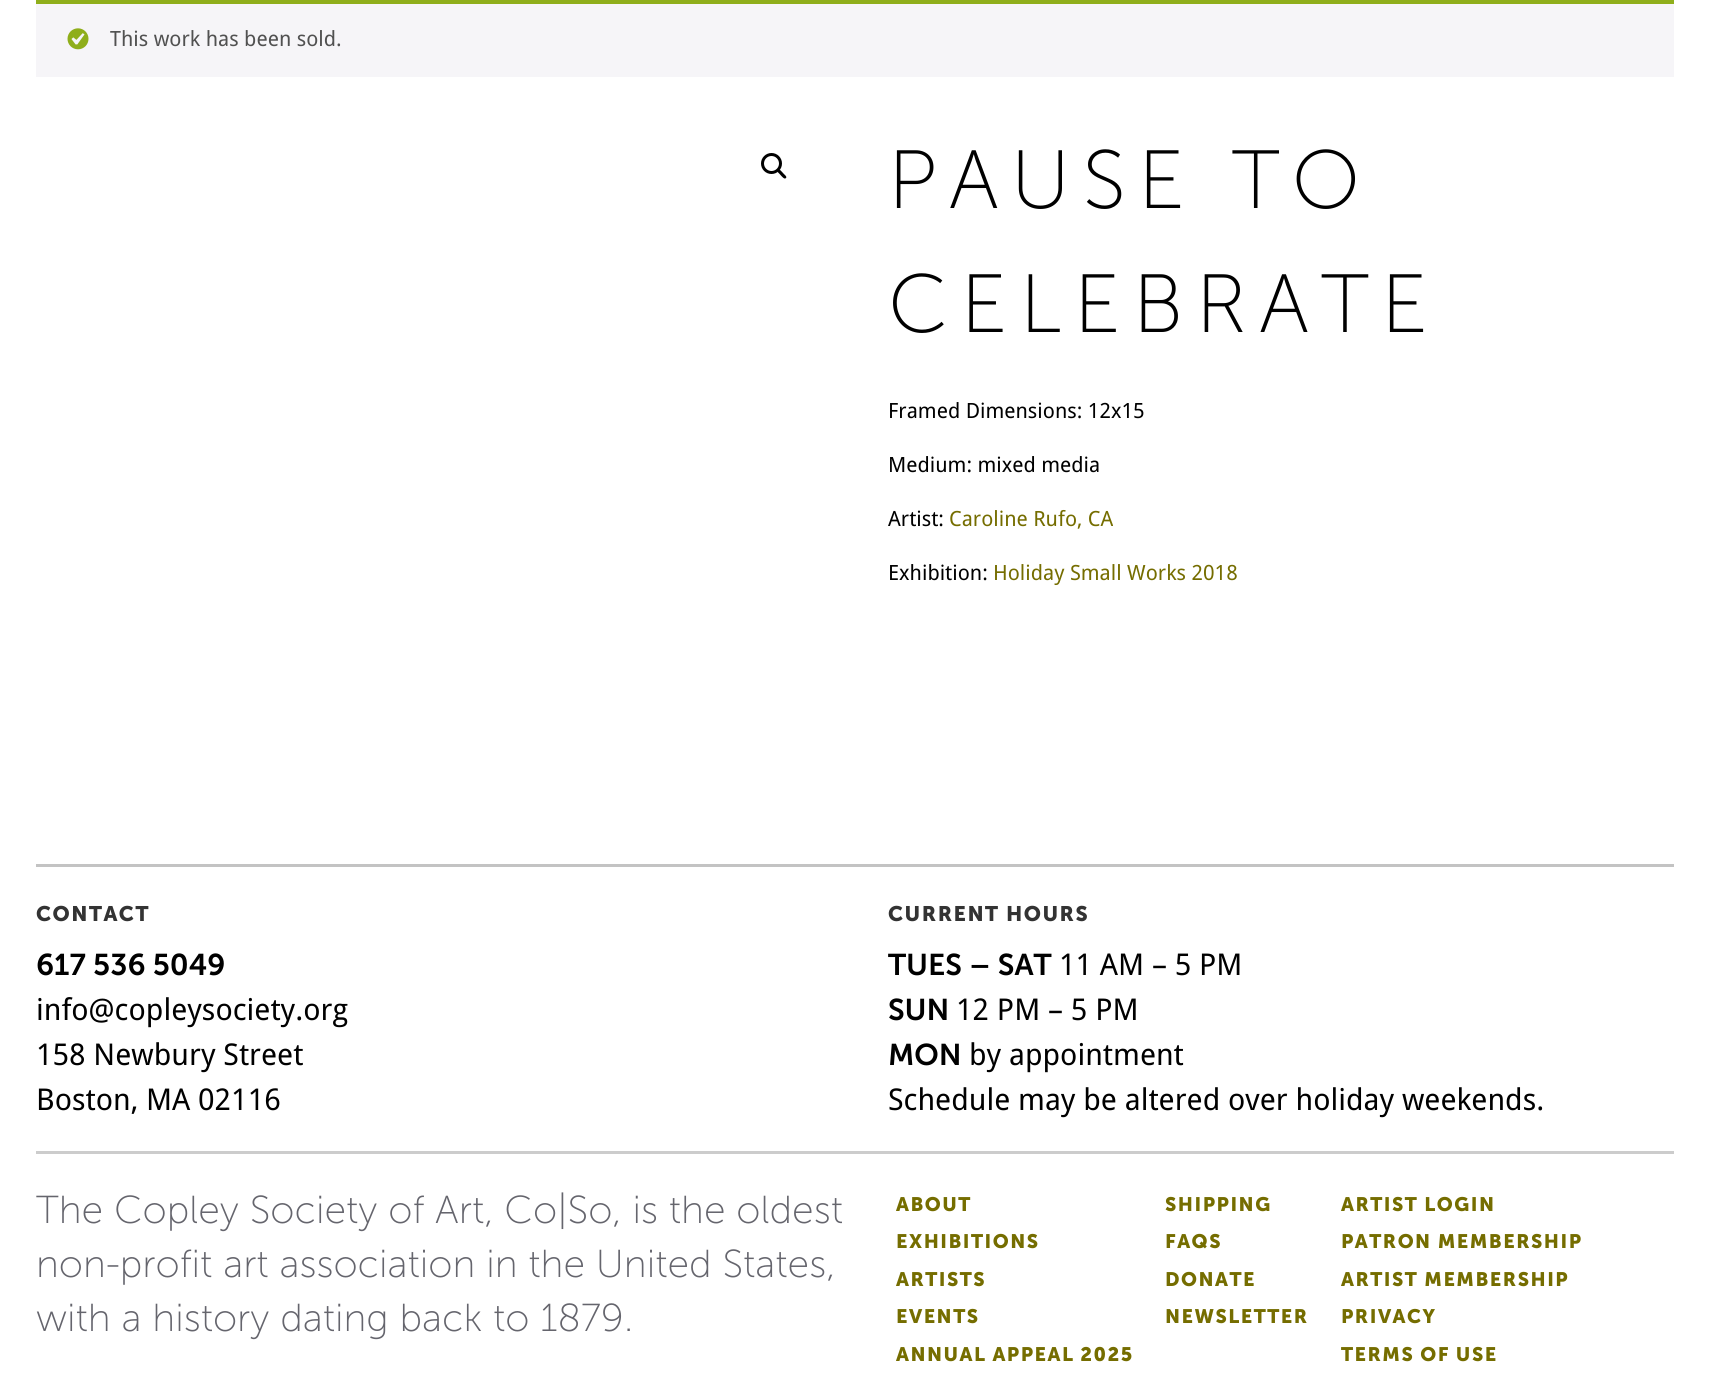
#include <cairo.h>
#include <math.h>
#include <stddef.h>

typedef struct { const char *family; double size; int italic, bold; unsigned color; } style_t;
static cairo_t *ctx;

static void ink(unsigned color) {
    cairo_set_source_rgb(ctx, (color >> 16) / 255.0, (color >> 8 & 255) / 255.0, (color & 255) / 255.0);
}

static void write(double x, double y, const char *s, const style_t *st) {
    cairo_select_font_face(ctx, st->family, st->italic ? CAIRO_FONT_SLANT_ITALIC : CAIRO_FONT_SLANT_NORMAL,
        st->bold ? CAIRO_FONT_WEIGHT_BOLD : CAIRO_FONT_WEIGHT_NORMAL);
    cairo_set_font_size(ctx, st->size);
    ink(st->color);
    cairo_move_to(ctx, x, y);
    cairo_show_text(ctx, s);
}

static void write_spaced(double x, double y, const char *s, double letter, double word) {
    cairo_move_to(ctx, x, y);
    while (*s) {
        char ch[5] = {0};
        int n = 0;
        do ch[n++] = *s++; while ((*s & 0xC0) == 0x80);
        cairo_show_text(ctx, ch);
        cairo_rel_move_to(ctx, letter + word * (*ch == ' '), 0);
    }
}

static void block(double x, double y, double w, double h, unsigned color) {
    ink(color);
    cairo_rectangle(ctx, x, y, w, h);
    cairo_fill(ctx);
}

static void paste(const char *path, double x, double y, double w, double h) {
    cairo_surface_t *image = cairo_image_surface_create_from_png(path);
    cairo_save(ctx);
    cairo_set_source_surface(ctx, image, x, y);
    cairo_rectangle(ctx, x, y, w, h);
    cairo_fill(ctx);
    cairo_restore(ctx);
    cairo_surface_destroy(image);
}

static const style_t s1 = {"Droid Sans", 21, 0, 0, 0x515151};
static const style_t s2 = {"Droid Sans", 21, 0, 0, 0x000000};
static const style_t s3 = {"Droid Sans", 21, 0, 0, 0x756d00};
static const style_t s4 = {"Museo Sans SemiBold", 30, 0, 0, 0x000000};
static const style_t s5 = {"Droid Sans", 30, 0, 0, 0x000000};
static const style_t s6 = {"Museo Sans ExtraLight", 39, 0, 0, 0x65656d};

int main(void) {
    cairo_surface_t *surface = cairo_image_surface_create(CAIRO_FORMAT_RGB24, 1710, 1383);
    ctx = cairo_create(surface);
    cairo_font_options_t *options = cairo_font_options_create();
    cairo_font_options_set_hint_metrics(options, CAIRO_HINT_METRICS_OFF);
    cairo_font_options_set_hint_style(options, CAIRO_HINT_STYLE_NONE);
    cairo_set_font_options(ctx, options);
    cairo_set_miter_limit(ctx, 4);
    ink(0xffffff);
    cairo_paint(ctx);
    block(36, 4, 1638, 73, 0xf6f5f8);
    block(36, 0, 1638, 4, 0x8fae1b);
    paste("pic1.png", 67, 28, 22, 22);
    write(110, 46, "This work has been sold.", &s1);
    cairo_new_path(ctx);
    cairo_arc(ctx, 771.5, 163.5, 9, 0, 2 * M_PI);
    ink(0x000000);
    cairo_set_line_width(ctx, 3);
    cairo_stroke(ctx);
    cairo_new_path(ctx);
    cairo_move_to(ctx, 777.5, 169.5);
    cairo_curve_to(ctx, 779, 168, 782, 172, 783, 173);
    cairo_curve_to(ctx, 783.5, 174, 787.5, 176.5, 786, 178);
    cairo_curve_to(ctx, 784.5, 180, 781.5, 176, 780.5, 175);
    cairo_curve_to(ctx, 780, 174, 776, 171.5, 777.5, 169.5);
    cairo_close_path(ctx);
    cairo_fill(ctx);
    cairo_select_font_face(ctx, "Museo Sans ExtraLight", CAIRO_FONT_SLANT_NORMAL, CAIRO_FONT_WEIGHT_NORMAL);
    cairo_set_font_size(ctx, 82.5);
    write_spaced(888, 208, "PAUSE TO", 12, 0);
    write_spaced(888, 332, "CELEBRATE", 12, 0);
    write(888, 418, "Framed Dimensions: 12x15", &s2);
    write(888, 472, "Medium: mixed media", &s2);
    write(888, 526, "Artist:", &s2);
    write(949, 526, "Caroline Rufo, CA", &s3);
    write(888, 580, "Exhibition:", &s2);
    write(993, 580, "Holiday Small Works 2018", &s3);
    block(36, 864, 1638, 3, 0xc3c3c3);
    cairo_select_font_face(ctx, "Museo Sans", CAIRO_FONT_SLANT_NORMAL, CAIRO_FONT_WEIGHT_BOLD);
    ink(0x333333);
    write_spaced(36, 921, "CONTACT", 1.5, 0);
    write(36, 975, "617 536 5049", &s4);
    write(36, 1020, "info@copleysociety.org", &s5);
    write(36, 1065, "158 Newbury Street", &s5);
    write(36, 1110, "Boston, MA 02116", &s5);
    cairo_select_font_face(ctx, "Museo Sans", CAIRO_FONT_SLANT_NORMAL, CAIRO_FONT_WEIGHT_BOLD);
    cairo_set_font_size(ctx, 21);
    ink(0x333333);
    write_spaced(888, 921, "CURRENT HOURS", 1.5, 0);
    write(888, 975, "TUES – SAT", &s4);
    write(1059, 975, "11 AM – 5 PM", &s5);
    write(888, 1020, "SUN", &s4);
    write(956, 1020, "12 PM – 5 PM", &s5);
    write(888, 1065, "MON", &s4);
    write(969, 1065, "by appointment", &s5);
    write(888, 1110, "Schedule may be altered over holiday weekends.", &s5);
    block(36, 1151, 1638, 3, 0xcccccc);
    write(36, 1223, "The Copley Society of Art, Co|So, is the oldest", &s6);
    write(36, 1277, "non-profit art association in the United States,", &s6);
    write(36, 1331, "with a history dating back to 1879.", &s6);
    cairo_select_font_face(ctx, "Museo Sans", CAIRO_FONT_SLANT_NORMAL, CAIRO_FONT_WEIGHT_BOLD);
    cairo_set_font_size(ctx, 19.5);
    ink(0x756d00);
    write_spaced(896, 1211, "ABOUT", 1.5, 0);
    write_spaced(896, 1248, "EXHIBITIONS", 1.5, 0);
    write_spaced(896, 1286, "ARTISTS", 1.5, 0);
    write_spaced(896, 1323, "EVENTS", 1.5, 0);
    write_spaced(896, 1361, "ANNUAL APPEAL 2025", 1.5, 0);
    write_spaced(1165, 1211, "SHIPPING", 1.5, 0);
    write_spaced(1165, 1248, "FAQS", 1.5, 0);
    write_spaced(1165, 1286, "DONATE", 1.5, 0);
    write_spaced(1165, 1323, "NEWSLETTER", 1.5, 0);
    write_spaced(1341, 1211, "ARTIST LOGIN", 1.5, 0);
    write_spaced(1341, 1248, "PATRON MEMBERSHIP", 1.5, 0);
    write_spaced(1341, 1286, "ARTIST MEMBERSHIP", 1.5, 0);
    write_spaced(1341, 1323, "PRIVACY", 1.5, 0);
    write_spaced(1341, 1361, "TERMS OF USE", 1.5, 0);
    cairo_surface_write_to_png(surface, "screenshot.png");
    cairo_font_options_destroy(options);
    cairo_destroy(ctx);
    cairo_surface_destroy(surface);
    return 0;
}
